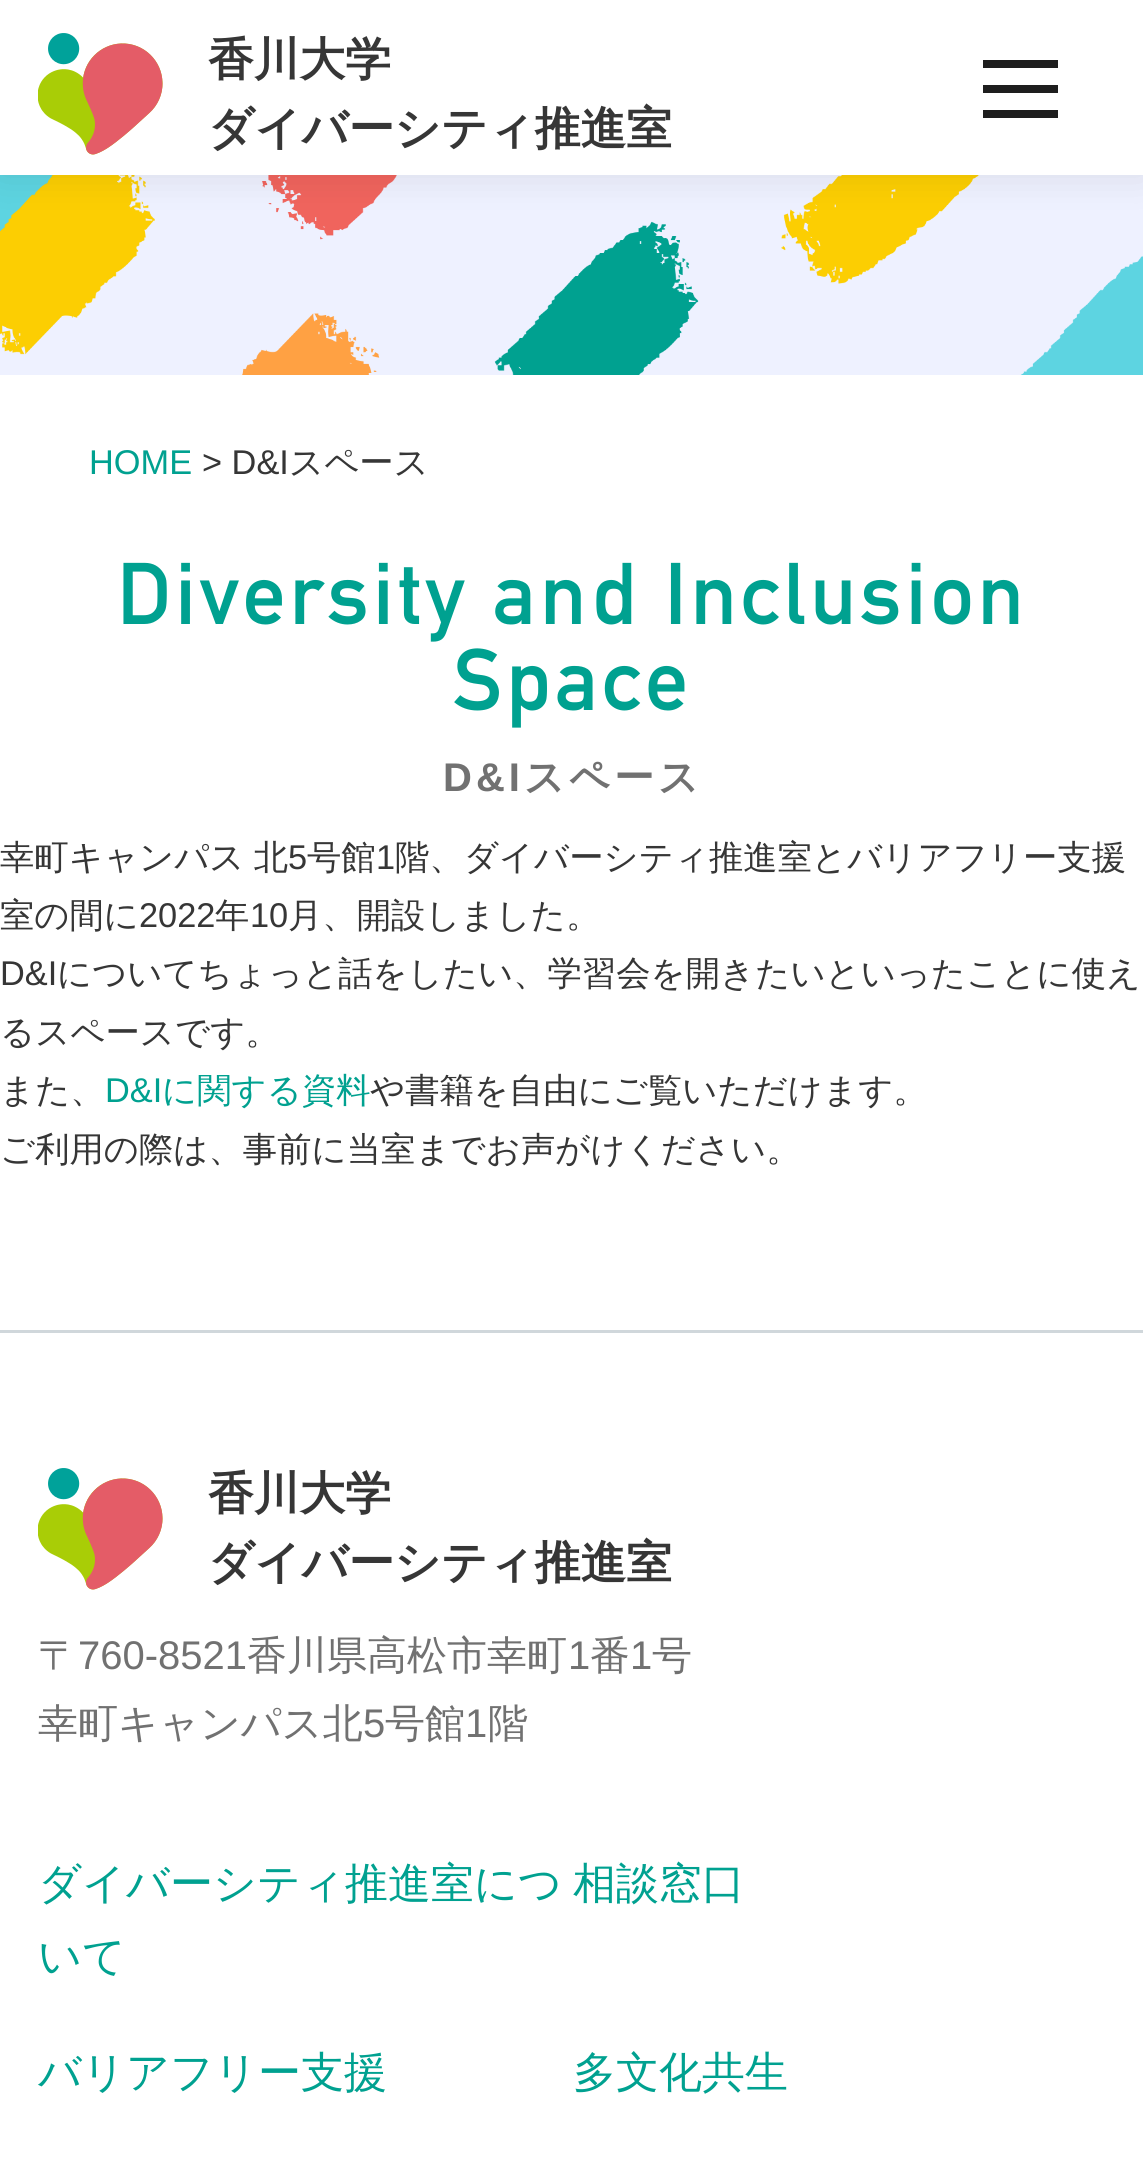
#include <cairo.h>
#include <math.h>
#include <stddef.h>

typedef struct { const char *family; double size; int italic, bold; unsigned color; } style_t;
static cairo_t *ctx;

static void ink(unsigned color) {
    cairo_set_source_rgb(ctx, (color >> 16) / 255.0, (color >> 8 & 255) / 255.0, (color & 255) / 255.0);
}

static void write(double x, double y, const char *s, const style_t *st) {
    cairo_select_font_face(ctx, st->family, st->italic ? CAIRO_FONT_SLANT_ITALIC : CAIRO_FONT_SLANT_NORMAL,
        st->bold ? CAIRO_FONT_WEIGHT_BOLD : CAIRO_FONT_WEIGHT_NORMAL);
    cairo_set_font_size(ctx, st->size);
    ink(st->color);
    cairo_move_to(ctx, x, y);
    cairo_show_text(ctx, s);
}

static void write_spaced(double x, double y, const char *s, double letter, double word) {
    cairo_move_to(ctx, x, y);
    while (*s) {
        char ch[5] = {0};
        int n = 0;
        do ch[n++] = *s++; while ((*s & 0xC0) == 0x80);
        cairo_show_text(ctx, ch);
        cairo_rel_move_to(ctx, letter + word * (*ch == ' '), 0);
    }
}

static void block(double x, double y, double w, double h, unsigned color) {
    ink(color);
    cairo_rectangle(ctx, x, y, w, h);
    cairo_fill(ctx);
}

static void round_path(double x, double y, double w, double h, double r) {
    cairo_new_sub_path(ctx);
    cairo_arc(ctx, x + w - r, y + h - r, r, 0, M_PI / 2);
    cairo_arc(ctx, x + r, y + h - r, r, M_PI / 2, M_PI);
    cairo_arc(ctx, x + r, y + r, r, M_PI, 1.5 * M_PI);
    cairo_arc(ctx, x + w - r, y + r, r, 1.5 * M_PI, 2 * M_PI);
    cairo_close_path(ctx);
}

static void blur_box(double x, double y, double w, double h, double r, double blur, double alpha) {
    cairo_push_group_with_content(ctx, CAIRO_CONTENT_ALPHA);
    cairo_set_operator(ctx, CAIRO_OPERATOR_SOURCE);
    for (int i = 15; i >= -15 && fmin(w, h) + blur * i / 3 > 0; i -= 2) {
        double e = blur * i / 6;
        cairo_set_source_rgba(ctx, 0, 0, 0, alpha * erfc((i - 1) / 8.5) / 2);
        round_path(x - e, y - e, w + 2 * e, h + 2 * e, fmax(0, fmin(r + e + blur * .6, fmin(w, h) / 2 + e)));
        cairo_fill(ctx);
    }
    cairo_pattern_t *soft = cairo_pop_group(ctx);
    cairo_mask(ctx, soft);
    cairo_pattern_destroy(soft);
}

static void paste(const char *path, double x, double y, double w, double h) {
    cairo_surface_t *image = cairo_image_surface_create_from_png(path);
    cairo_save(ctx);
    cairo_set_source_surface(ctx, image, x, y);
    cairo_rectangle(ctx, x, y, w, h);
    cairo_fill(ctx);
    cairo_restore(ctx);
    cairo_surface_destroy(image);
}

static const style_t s1 = {"WenQuanYi Zen Hei", 45.75, 0, 1, 0x363636};
static const style_t s2 = {"Liberation Sans", 34.35, 0, 0, 0x00a190};
static const style_t s3 = {"Liberation Sans", 34.35, 0, 0, 0x363636};
static const style_t s4 = {"WenQuanYi Zen Hei Medium", 34.35, 0, 0, 0x363636};
static const style_t s5 = {"WenQuanYi Zen Hei Medium", 34.35, 0, 0, 0x00a190};
static const style_t s6 = {"WenQuanYi Zen Hei Medium", 40, 0, 0, 0x717171};
static const style_t s7 = {"Liberation Sans", 40, 0, 0, 0x717171};
static const style_t s8 = {"WenQuanYi Zen Hei Medium", 43, 0, 0, 0x00a190};

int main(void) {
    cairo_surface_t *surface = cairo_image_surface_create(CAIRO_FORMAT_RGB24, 1143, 2165);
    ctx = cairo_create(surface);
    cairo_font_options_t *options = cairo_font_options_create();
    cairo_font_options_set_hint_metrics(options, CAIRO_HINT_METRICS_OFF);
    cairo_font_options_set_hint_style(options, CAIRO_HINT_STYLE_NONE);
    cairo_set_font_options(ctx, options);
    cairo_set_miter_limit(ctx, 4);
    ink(0xffffff);
    cairo_paint(ctx);
    block(0, 175, 1143, 200, 0xeef1ff);
    paste("pic2.png", 0, 175, 1143, 200);
    ink(0x000000);
    blur_box(0, 0, 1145, 175, 0, 19, 0.1);
    block(0, 0, 1143, 175, 0xffffff);
    paste("pic1.png", 38, 33, 125, 122);
    write(208, 75, "香川大学", &s1);
    write(208, 144, "ダイバーシティ推進室", &s1);
    block(983, 85, 75, 8, 0x1e1e1e);
    block(983, 60, 75, 8, 0x1e1e1e);
    block(983, 110, 75, 8, 0x1e1e1e);
    write(89, 474, "HOME", &s2);
    write(202, 474, "> D&I", &s3);
    write(289, 474, "スペース", &s4);
    cairo_select_font_face(ctx, "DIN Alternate", CAIRO_FONT_SLANT_NORMAL, CAIRO_FONT_WEIGHT_BOLD);
    cairo_set_font_size(ctx, 85.9);
    ink(0x00a190);
    write_spaced(117, 624, "Diversity and Inclusion", 4.25, 0);
    write_spaced(453, 710, "Space", 4.25, 0);
    cairo_select_font_face(ctx, "Liberation Sans", CAIRO_FONT_SLANT_NORMAL, CAIRO_FONT_WEIGHT_BOLD);
    cairo_set_font_size(ctx, 40);
    ink(0x717171);
    write_spaced(443, 791, "D&I", 4, 0);
    cairo_select_font_face(ctx, "WenQuanYi Zen Hei", CAIRO_FONT_SLANT_NORMAL, CAIRO_FONT_WEIGHT_BOLD);
    write_spaced(524, 791, "スペース", 4, 0);
    cairo_select_font_face(ctx, "WenQuanYi Zen Hei Medium", CAIRO_FONT_SLANT_NORMAL, CAIRO_FONT_WEIGHT_NORMAL);
    cairo_set_font_size(ctx, 34.35);
    ink(0x363636);
    write_spaced(0, 869, "幸町キャンパス 北", 0, -1);
    write(288, 869, "5", &s3);
    write(307, 869, "号館", &s4);
    write(376, 869, "1", &s3);
    write(395, 869, "階、ダイバーシティ推進室とバリアフリー支援", &s4);
    write(0, 927, "室の間に", &s4);
    write(139, 927, "2022", &s3);
    write(215, 927, "年", &s4);
    write(250, 927, "10", &s3);
    write(288, 927, "月、開設しました。", &s4);
    write(0, 985, "D&I", &s3);
    write(57, 985, "についてちょっと話をしたい、学習会を開きたいといったことに使え", &s4);
    write(0, 1044, "るスペースです。", &s4);
    write(0, 1102, "また、", &s4);
    write(105, 1102, "D&I", &s2);
    write(162, 1102, "に関する資料", &s5);
    write(370, 1102, "や書籍を自由にご覧いただけます。", &s4);
    write(0, 1161, "ご利用の際は、事前に当室までお声がけください。", &s4);
    block(0, 1330, 1143, 3, 0xd0d7db);
    paste("pic1.png", 38, 1468, 125, 122);
    write(208, 1509, "香川大学", &s1);
    write(208, 1578, "ダイバーシティ推進室", &s1);
    write(38, 1669, "〒", &s6);
    write(78, 1669, "760-8521", &s7);
    write(247, 1669, "香川県高松市幸町", &s6);
    write(568, 1669, "1", &s7);
    write(590, 1669, "番", &s6);
    write(630, 1669, "1", &s7);
    write(652, 1669, "号", &s6);
    write(38, 1737, "幸町キャンパス北", &s6);
    write(363, 1737, "5", &s7);
    write(385, 1737, "号館", &s6);
    write(465, 1737, "1", &s7);
    write(488, 1737, "階", &s6);
    write(38, 1898, "ダイバーシティ推進室につ", &s8);
    write(38, 1971, "いて", &s8);
    write(573, 1898, "相談窓口", &s8);
    write(38, 2087, "バリアフリー支援", &s8);
    write(573, 2087, "多文化共生", &s8);
    cairo_surface_write_to_png(surface, "screenshot.png");
    cairo_font_options_destroy(options);
    cairo_destroy(ctx);
    cairo_surface_destroy(surface);
    return 0;
}
